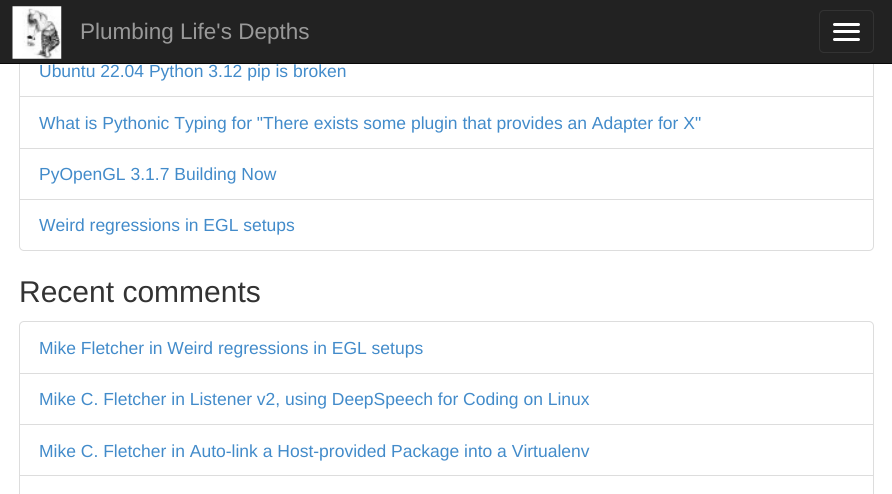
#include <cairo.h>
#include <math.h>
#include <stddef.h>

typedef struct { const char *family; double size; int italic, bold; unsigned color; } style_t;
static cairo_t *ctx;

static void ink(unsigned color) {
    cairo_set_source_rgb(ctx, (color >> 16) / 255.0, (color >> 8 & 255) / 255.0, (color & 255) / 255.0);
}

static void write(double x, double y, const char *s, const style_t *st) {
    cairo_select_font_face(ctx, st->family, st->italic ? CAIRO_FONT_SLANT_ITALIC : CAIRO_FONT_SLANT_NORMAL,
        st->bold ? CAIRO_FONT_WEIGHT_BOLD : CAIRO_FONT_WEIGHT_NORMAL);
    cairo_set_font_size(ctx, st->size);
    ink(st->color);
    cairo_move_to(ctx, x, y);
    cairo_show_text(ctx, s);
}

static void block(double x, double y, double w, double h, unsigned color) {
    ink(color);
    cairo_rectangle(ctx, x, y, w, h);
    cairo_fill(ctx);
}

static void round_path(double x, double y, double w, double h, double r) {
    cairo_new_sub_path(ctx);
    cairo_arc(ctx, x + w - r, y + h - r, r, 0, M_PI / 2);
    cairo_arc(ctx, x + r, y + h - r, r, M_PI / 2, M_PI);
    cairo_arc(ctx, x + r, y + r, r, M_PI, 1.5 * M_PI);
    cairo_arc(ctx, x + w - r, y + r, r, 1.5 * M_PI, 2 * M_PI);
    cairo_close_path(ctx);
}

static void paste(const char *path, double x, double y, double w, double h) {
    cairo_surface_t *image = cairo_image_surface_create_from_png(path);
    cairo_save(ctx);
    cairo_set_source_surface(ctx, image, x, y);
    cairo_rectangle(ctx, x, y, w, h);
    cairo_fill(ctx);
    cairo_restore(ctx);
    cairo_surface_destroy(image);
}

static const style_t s1 = {"Liberation Sans", 22.5, 0, 0, 0x999999};
static const style_t s2 = {"Liberation Sans", 17.5, 0, 0, 0x428bca};
static const style_t s3 = {"Liberation Sans", 30, 0, 0, 0x333333};

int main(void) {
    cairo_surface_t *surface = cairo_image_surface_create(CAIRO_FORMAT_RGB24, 892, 494);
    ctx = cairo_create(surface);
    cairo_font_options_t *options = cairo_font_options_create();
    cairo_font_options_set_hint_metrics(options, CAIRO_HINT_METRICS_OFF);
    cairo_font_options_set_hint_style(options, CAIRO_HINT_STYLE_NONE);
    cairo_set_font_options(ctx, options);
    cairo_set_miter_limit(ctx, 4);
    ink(0xffffff);
    cairo_paint(ctx);
    cairo_rectangle(ctx, 19.5, 45.5, 854, 52);
    ink(0xdddddd);
    cairo_set_line_width(ctx, 1);
    cairo_stroke(ctx);
    block(0, 0, 892, 63, 0x222222);
    block(0, 63, 892, 1, 0x080808);
    paste("pic1.png", 12, 6, 50, 53);
    write(80, 39, "Plumbing Life's Depths", &s1);
    round_path(819.5, 10.5, 54, 42, 4.5);
    ink(0x333333);
    cairo_stroke(ctx);
    ink(0xffffff);
    round_path(833, 23, 27, 3, 1.5);
    cairo_fill(ctx);
    round_path(833, 30, 27, 3, 1.5);
    cairo_fill(ctx);
    round_path(833, 38, 27, 3, 1.5);
    cairo_fill(ctx);
    write(39, 77, "Ubuntu 22.04 Python 3.12 pip is broken", &s2);
    block(20, 97, 853, 1, 0xffffff);
    cairo_rectangle(ctx, 19.5, 96.5, 854, 52);
    ink(0xdddddd);
    cairo_stroke(ctx);
    write(39, 129, "What is Pythonic Typing for \"There exists some plugin that provides an Adapter for X\"", &s2);
    cairo_rectangle(ctx, 19.5, 148.5, 854, 51);
    ink(0xdddddd);
    cairo_stroke(ctx);
    write(39, 180, "PyOpenGL 3.1.7 Building Now", &s2);
    ink(0xffffff);
    cairo_new_path(ctx);
    cairo_move_to(ctx, 19.5, 199.5);
    cairo_line_to(ctx, 873.5, 199.5);
    cairo_line_to(ctx, 873.5, 246);
    cairo_curve_to(ctx, 873.5, 248.5, 871.5, 250.5, 869, 250.5);
    cairo_line_to(ctx, 24, 250.5);
    cairo_curve_to(ctx, 21.5, 250.5, 19.5, 248.5, 19.5, 246);
    cairo_close_path(ctx);
    cairo_fill_preserve(ctx);
    ink(0xdddddd);
    cairo_stroke(ctx);
    write(39, 231, "Weird regressions in EGL setups", &s2);
    write(19, 302, "Recent comments", &s3);
    cairo_new_path(ctx);
    cairo_move_to(ctx, 24, 321.5);
    cairo_line_to(ctx, 869, 321.5);
    cairo_curve_to(ctx, 871.5, 321.5, 873.5, 323.5, 873.5, 326);
    cairo_line_to(ctx, 873.5, 373.5);
    cairo_line_to(ctx, 19.5, 373.5);
    cairo_line_to(ctx, 19.5, 326);
    cairo_curve_to(ctx, 19.5, 323.5, 21.5, 321.5, 24, 321.5);
    cairo_close_path(ctx);
    ink(0xdddddd);
    cairo_stroke(ctx);
    write(39, 354, "Mike Fletcher in Weird regressions in EGL setups", &s2);
    cairo_rectangle(ctx, 19.5, 373.5, 854, 51);
    ink(0xdddddd);
    cairo_stroke(ctx);
    write(39, 405, "Mike C. Fletcher in Listener v2, using DeepSpeech for Coding on Linux", &s2);
    cairo_rectangle(ctx, 19.5, 424.5, 854, 51);
    ink(0xdddddd);
    cairo_stroke(ctx);
    write(39, 457, "Mike C. Fletcher in Auto-link a Host-provided Package into a Virtualenv", &s2);
    cairo_rectangle(ctx, 19.5, 475.5, 854, 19);
    ink(0xdddddd);
    cairo_stroke(ctx);
    cairo_surface_write_to_png(surface, "screenshot.png");
    cairo_font_options_destroy(options);
    cairo_destroy(ctx);
    cairo_surface_destroy(surface);
    return 0;
}
